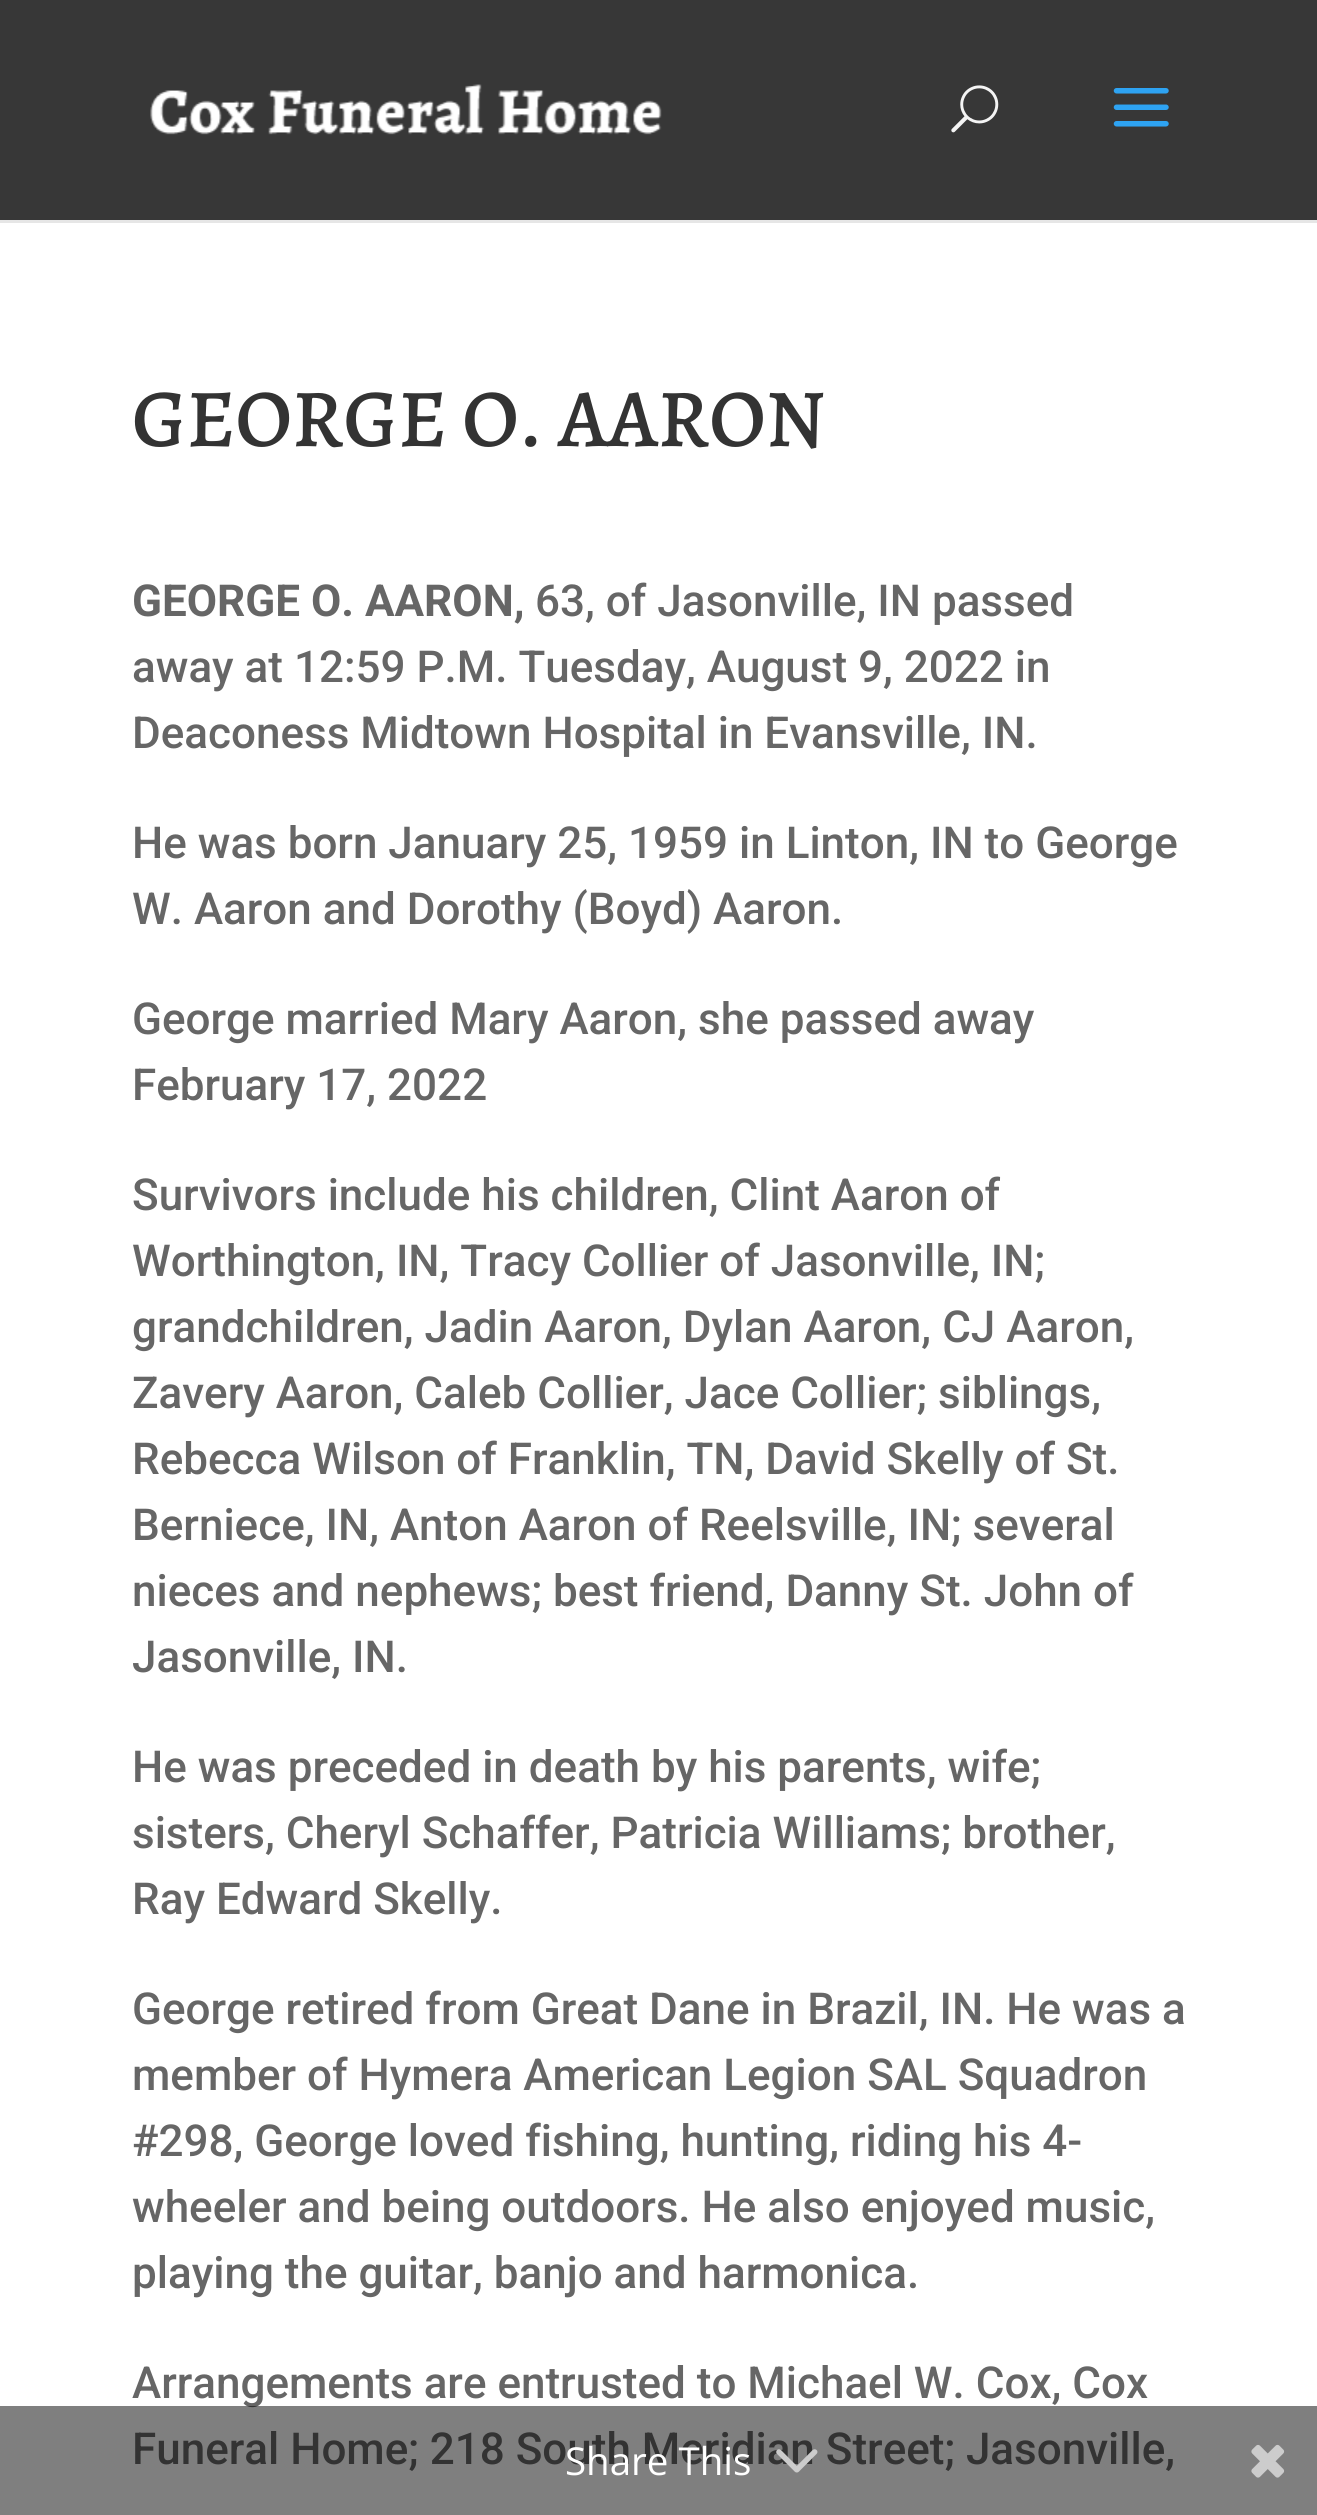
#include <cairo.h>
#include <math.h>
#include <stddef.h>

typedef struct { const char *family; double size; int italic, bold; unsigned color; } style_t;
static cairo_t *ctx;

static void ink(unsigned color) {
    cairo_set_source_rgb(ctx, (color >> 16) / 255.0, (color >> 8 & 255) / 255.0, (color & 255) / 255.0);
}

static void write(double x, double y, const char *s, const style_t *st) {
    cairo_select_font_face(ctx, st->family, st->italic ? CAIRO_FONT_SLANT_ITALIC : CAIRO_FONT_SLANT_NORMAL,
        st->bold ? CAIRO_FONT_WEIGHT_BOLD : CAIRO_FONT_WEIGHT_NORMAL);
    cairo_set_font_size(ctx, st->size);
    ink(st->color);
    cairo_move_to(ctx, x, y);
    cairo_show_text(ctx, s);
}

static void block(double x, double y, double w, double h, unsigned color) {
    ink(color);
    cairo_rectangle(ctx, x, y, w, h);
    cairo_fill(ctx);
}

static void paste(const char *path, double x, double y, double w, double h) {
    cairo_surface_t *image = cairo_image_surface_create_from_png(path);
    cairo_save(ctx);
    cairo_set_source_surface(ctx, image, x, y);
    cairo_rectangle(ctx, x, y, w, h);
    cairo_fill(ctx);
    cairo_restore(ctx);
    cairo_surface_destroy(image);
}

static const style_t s1 = {"Alegreya Medium", 82.5, 0, 0, 0x333333};
static const style_t s2 = {"Roboto", 44, 0, 1, 0x666666};
static const style_t s3 = {"Roboto Medium", 44, 0, 0, 0x666666};
static const style_t s4 = {"Open Sans", 38.5, 0, 0, 0xffffff};

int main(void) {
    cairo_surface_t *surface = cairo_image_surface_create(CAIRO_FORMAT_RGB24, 1317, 2515);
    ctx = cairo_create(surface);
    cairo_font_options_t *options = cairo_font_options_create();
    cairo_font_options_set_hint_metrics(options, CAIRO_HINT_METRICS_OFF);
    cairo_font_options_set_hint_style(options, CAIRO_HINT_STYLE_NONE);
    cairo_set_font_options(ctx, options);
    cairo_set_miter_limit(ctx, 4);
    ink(0xffffff);
    cairo_paint(ctx);
    block(0, 220, 1317, 3, 0xe6e6e6);
    block(0, 0, 1317, 220, 0x373737);
    paste("pic1.png", 150, 84, 512, 51);
    paste("pic2.png", 951, 85, 48, 48);
    paste("pic3.png", 1113, 88, 56, 39);
    write(132, 446, "GEORGE O. AARON", &s1);
    write(132, 616, "GEORGE O. AARON,", &s2);
    write(535, 616, "63, of Jasonville, IN passed", &s3);
    write(132, 682, "away at 12:59 P.M. Tuesday, August 9, 2022 in", &s3);
    write(132, 748, "Deaconess Midtown Hospital in Evansville, IN.", &s3);
    write(132, 858, "He was born January 25, 1959 in Linton, IN to George", &s3);
    write(132, 924, "W. Aaron and Dorothy (Boyd) Aaron.", &s3);
    write(132, 1034, "George married Mary Aaron, she passed away", &s3);
    write(132, 1100, "February 17, 2022", &s3);
    write(132, 1210, "Survivors include his children, Clint Aaron of", &s3);
    write(132, 1276, "Worthington, IN, Tracy Collier of Jasonville, IN;", &s3);
    write(132, 1342, "grandchildren, Jadin Aaron, Dylan Aaron, CJ Aaron,", &s3);
    write(132, 1408, "Zavery Aaron, Caleb Collier, Jace Collier; siblings,", &s3);
    write(132, 1474, "Rebecca Wilson of Franklin, TN, David Skelly of St.", &s3);
    write(132, 1540, "Berniece, IN, Anton Aaron of Reelsville, IN; several", &s3);
    write(132, 1606, "nieces and nephews; best friend, Danny St. John of", &s3);
    write(132, 1672, "Jasonville, IN.", &s3);
    write(132, 1782, "He was preceded in death by his parents, wife;", &s3);
    write(132, 1848, "sisters, Cheryl Schaffer, Patricia Williams; brother,", &s3);
    write(132, 1914, "Ray Edward Skelly.", &s3);
    write(132, 2024, "George retired from Great Dane in Brazil, IN. He was a", &s3);
    write(132, 2090, "member of Hymera American Legion SAL Squadron", &s3);
    write(132, 2156, "#298, George loved fishing, hunting, riding his 4-", &s3);
    write(132, 2222, "wheeler and being outdoors. He also enjoyed music,", &s3);
    write(132, 2288, "playing the guitar, banjo and harmonica.", &s3);
    write(132, 2398, "Arrangements are entrusted to Michael W. Cox, Cox", &s3);
    write(132, 2464, "Funeral Home; 218 South Meridian Street; Jasonville,", &s3);
    cairo_set_source_rgba(ctx, 0, 0, 0, 0.5);
    cairo_rectangle(ctx, 0, 2406, 1317, 109);
    cairo_fill(ctx);
    write(565, 2475, "Share This", &s4);
    paste("pic4.png", 776, 2449, 42, 24);
    paste("pic5.png", 1251, 2444, 34, 34);
    cairo_surface_write_to_png(surface, "screenshot.png");
    cairo_font_options_destroy(options);
    cairo_destroy(ctx);
    cairo_surface_destroy(surface);
    return 0;
}
